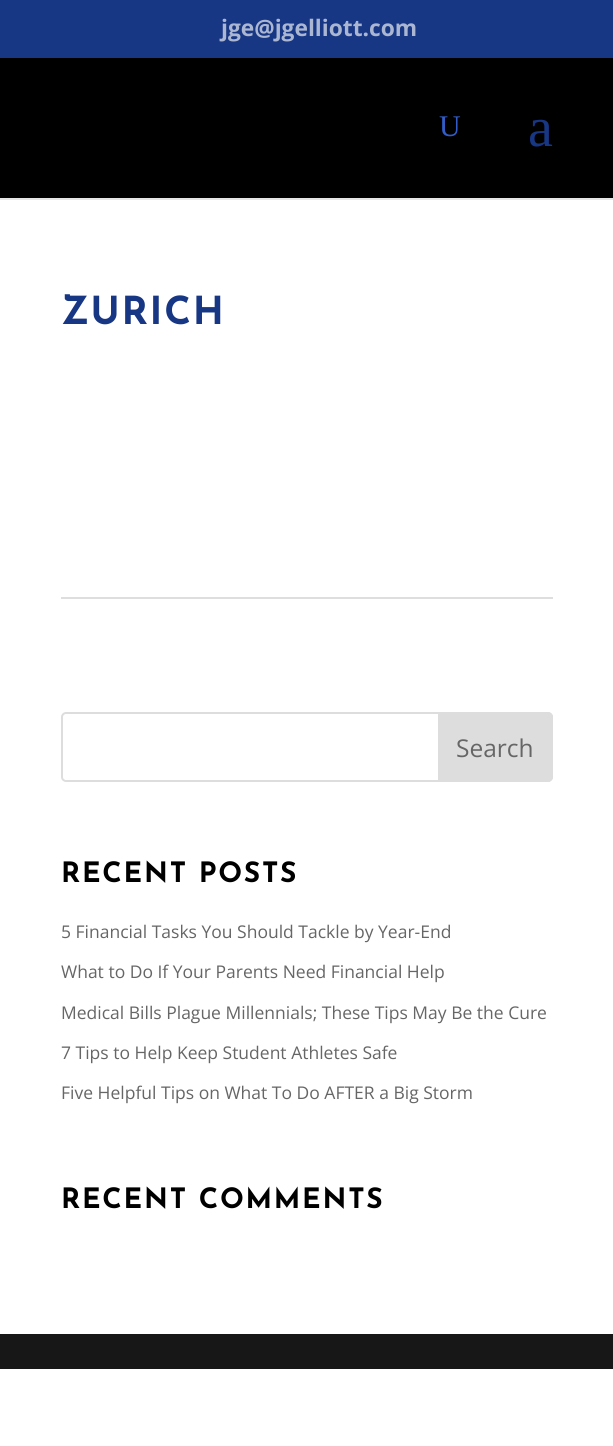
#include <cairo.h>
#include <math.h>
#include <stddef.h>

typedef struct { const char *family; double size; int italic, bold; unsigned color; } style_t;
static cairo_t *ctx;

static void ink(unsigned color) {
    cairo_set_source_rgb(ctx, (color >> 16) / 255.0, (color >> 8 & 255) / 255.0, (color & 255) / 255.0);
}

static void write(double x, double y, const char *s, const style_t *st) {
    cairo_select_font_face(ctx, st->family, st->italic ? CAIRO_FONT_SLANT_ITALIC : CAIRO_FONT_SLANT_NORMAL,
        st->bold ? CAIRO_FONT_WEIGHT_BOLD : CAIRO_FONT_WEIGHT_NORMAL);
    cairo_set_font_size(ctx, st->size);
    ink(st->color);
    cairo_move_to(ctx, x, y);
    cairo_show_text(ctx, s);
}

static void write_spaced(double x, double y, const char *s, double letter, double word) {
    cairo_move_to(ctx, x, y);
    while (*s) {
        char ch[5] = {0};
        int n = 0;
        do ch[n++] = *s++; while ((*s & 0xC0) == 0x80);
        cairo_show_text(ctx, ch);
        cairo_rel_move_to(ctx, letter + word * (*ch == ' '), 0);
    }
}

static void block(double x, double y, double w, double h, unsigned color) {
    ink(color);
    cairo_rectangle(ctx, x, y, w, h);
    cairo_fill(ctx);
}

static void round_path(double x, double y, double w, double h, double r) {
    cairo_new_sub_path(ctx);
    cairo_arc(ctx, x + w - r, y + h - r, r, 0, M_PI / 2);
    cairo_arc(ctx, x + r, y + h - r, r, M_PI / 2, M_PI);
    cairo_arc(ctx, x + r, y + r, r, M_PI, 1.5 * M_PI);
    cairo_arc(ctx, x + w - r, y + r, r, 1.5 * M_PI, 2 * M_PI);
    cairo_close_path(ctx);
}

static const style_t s1 = {"Open Sans", 22.75, 0, 1, 0xabb7d2};
static const style_t s2 = {"Liberation Serif", 30, 0, 0, 0x325dc9};
static const style_t s3 = {"Liberation Serif", 56, 0, 0, 0x173683};
static const style_t s4 = {"Open Sans", 24.5, 0, 0, 0x666666};
static const style_t s5 = {"Open Sans", 17.5, 0, 0, 0x666666};

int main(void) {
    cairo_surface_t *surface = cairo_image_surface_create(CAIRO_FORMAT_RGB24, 613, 1446);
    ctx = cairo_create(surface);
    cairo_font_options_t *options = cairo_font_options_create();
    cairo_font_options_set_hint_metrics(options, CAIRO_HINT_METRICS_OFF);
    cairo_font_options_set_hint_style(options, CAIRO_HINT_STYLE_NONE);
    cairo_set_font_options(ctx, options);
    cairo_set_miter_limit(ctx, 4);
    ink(0xffffff);
    cairo_paint(ctx);
    block(0, 0, 613, 58, 0x173683);
    write(221, 36, "jge@jgelliott.com", &s1);
    block(0, 198, 613, 2, 0xe6e6e6);
    block(0, 58, 613, 140, 0x000000);
    write(439, 136, "U", &s2);
    write(528, 146, "a", &s3);
    cairo_select_font_face(ctx, "Josefin Sans", CAIRO_FONT_SLANT_NORMAL, CAIRO_FONT_WEIGHT_BOLD);
    cairo_set_font_size(ctx, 38.5);
    write_spaced(61, 324, "ZURICH", 1.75, 0);
    block(61, 597, 492, 2, 0xdedede);
    round_path(62, 713, 490, 68, 4);
    ink(0xdddddd);
    cairo_stroke(ctx);
    cairo_new_path(ctx);
    cairo_move_to(ctx, 439, 713);
    cairo_line_to(ctx, 548, 713);
    cairo_curve_to(ctx, 550, 713, 552, 715, 552, 717);
    cairo_line_to(ctx, 552, 777);
    cairo_curve_to(ctx, 552, 779, 550, 781, 548, 781);
    cairo_line_to(ctx, 439, 781);
    cairo_close_path(ctx);
    cairo_fill_preserve(ctx);
    cairo_stroke(ctx);
    write(456, 757, "Search", &s4);
    cairo_select_font_face(ctx, "Josefin Sans", CAIRO_FONT_SLANT_NORMAL, CAIRO_FONT_WEIGHT_BOLD);
    cairo_set_font_size(ctx, 28);
    ink(0x000000);
    write_spaced(61, 882, "RECENT POSTS", 1.75, 0);
    write(61, 938, "5 Financial Tasks You Should Tackle by Year-End", &s5);
    write(61, 978, "What to Do If Your Parents Need Financial Help", &s5);
    write(61, 1019, "Medical Bills Plague Millennials; These Tips May Be the Cure", &s5);
    write(61, 1059, "7 Tips to Help Keep Student Athletes Safe", &s5);
    write(61, 1099, "Five Helpful Tips on What To Do AFTER a Big Storm", &s5);
    cairo_select_font_face(ctx, "Josefin Sans", CAIRO_FONT_SLANT_NORMAL, CAIRO_FONT_WEIGHT_BOLD);
    cairo_set_font_size(ctx, 28);
    ink(0x000000);
    write_spaced(61, 1208, "RECENT COMMENTS", 1.75, 0);
    block(0, 1334, 613, 35, 0x171717);
    cairo_surface_write_to_png(surface, "screenshot.png");
    cairo_font_options_destroy(options);
    cairo_destroy(ctx);
    cairo_surface_destroy(surface);
    return 0;
}
